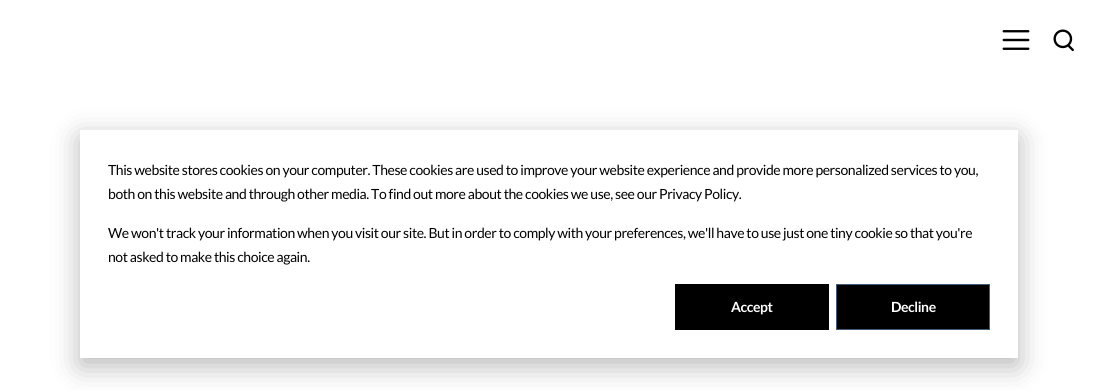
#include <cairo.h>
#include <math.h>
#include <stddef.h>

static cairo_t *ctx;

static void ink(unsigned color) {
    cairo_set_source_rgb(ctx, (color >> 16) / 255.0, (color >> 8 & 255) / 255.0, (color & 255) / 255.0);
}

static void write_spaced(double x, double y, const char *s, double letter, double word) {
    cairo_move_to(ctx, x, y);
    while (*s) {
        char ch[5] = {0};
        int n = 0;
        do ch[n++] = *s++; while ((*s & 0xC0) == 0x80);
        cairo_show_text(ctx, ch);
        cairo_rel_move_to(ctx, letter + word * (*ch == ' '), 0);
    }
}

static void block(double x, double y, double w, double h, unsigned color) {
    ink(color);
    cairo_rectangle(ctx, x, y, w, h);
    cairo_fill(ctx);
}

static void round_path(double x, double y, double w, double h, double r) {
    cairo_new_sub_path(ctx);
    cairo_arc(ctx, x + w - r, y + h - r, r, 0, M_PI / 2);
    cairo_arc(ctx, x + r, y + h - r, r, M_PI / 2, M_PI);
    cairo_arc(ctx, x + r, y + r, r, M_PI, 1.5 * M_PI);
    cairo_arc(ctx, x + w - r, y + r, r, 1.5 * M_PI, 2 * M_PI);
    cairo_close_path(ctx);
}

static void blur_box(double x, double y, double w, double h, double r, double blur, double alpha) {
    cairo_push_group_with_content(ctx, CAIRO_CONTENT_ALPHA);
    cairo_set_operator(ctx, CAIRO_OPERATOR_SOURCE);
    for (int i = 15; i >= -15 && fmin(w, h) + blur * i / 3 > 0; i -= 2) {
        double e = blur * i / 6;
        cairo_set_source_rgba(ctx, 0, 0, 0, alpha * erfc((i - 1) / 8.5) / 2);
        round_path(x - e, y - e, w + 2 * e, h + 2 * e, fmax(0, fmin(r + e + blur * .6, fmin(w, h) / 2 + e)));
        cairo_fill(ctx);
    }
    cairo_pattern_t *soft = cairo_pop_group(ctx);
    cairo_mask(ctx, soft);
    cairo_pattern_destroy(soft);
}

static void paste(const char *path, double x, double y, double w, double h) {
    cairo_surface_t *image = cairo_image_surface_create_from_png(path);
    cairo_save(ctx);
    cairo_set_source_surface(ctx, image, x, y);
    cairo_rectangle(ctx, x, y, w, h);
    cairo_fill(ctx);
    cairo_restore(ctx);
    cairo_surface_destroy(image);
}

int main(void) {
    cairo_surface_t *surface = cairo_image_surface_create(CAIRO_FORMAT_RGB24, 1098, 390);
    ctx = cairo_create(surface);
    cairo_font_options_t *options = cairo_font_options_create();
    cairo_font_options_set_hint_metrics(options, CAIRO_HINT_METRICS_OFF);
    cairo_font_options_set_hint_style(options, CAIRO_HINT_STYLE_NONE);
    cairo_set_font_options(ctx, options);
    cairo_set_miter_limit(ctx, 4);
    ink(0xffffff);
    cairo_paint(ctx);
    paste("pic1.png", 1002, 30, 28, 20);
    paste("pic2.png", 1053, 29, 21, 23);
    ink(0x000000);
    blur_box(80, 138, 938, 228, 0, 14, 0.28);
    block(80, 130, 938, 228, 0xffffff);
    cairo_select_font_face(ctx, "Lato", CAIRO_FONT_SLANT_NORMAL, CAIRO_FONT_WEIGHT_NORMAL);
    cairo_set_font_size(ctx, 14);
    ink(0x000000);
    write_spaced(108, 175, "This website stores cookies on your computer. These cookies are used to improve your website experience and provide more personalized services to you,", -0.42, 0);
    write_spaced(108, 199, "both on this website and through other media. To find out more about the cookies we use, see our Privacy Policy.", -0.42, 0);
    write_spaced(108, 238, "We won't track your information when you visit our site. But in order to comply with your preferences, we'll have to use just one tiny cookie so that you're", -0.42, 0);
    write_spaced(108, 262, "not asked to make this choice again.", -0.42, 0);
    block(675, 284, 154, 46, 0x000000);
    cairo_select_font_face(ctx, "Lato", CAIRO_FONT_SLANT_NORMAL, CAIRO_FONT_WEIGHT_BOLD);
    ink(0xffffff);
    write_spaced(731, 312, "Accept", -0.42, 0);
    ink(0x000000);
    cairo_rectangle(ctx, 836.5, 284.5, 153, 45);
    cairo_fill_preserve(ctx);
    ink(0x425b76);
    cairo_set_line_width(ctx, 1);
    cairo_stroke(ctx);
    ink(0xffffff);
    write_spaced(891, 312, "Decline", -0.42, 0);
    cairo_surface_write_to_png(surface, "screenshot.png");
    cairo_font_options_destroy(options);
    cairo_destroy(ctx);
    cairo_surface_destroy(surface);
    return 0;
}
